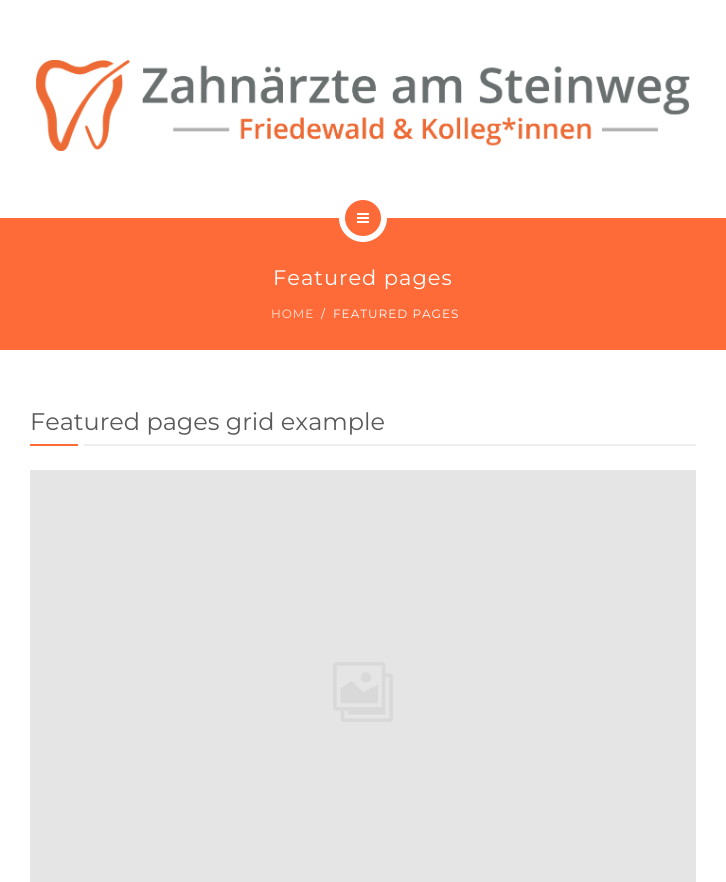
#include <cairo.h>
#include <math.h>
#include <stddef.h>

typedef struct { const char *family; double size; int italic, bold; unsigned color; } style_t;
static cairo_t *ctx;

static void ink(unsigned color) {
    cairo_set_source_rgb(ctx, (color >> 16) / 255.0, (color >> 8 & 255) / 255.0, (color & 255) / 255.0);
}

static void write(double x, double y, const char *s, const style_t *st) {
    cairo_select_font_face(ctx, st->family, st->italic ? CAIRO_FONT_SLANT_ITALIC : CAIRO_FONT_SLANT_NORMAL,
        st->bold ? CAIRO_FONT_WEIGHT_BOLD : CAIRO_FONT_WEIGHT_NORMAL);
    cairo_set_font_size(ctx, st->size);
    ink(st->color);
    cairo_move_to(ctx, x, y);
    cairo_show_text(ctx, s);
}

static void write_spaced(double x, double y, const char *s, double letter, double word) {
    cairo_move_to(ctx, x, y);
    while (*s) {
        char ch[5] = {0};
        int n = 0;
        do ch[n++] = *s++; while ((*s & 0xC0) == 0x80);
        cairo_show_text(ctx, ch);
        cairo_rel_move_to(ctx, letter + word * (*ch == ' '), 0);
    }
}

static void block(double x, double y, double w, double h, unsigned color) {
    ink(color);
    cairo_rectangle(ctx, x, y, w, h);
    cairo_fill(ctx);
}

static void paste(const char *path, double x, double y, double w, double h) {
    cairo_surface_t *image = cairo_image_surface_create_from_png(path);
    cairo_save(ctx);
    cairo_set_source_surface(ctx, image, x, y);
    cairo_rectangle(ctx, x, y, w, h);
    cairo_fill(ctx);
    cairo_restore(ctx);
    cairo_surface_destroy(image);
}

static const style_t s1 = {"Montserrat Thin", 24, 0, 0, 0x595959};

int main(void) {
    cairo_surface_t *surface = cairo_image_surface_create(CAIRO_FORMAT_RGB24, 726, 882);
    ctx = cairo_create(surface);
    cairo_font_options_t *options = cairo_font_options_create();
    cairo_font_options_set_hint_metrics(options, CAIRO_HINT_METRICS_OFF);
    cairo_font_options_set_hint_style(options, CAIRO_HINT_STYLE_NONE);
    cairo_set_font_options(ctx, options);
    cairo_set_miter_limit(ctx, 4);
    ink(0xffffff);
    cairo_paint(ctx);
    paste("pic1.png", 36, 60, 654, 91);
    block(0, 218, 726, 132, 0xff6b38);
    cairo_arc(ctx, 363, 218, 21, 0, 2 * M_PI);
    cairo_fill_preserve(ctx);
    ink(0xffffff);
    cairo_set_line_width(ctx, 6);
    cairo_stroke(ctx);
    block(357, 213, 12, 2, 0xffffff);
    block(357, 217, 12, 2, 0xffffff);
    block(357, 221, 12, 2, 0xffffff);
    cairo_select_font_face(ctx, "Montserrat Thin", CAIRO_FONT_SLANT_NORMAL, CAIRO_FONT_WEIGHT_NORMAL);
    cairo_set_font_size(ctx, 21);
    write_spaced(273, 285, "Featured pages", 1, 0);
    cairo_set_font_size(ctx, 12);
    ink(0xffe1d7);
    write_spaced(271, 318, "HOME", 1, 0);
    ink(0xffffff);
    write_spaced(321, 318, "/", 1, 0);
    write_spaced(333, 318, "FEATURED PAGES", 1, 0);
    write(30, 430, "Featured pages grid example", &s1);
    block(84, 444, 612, 2, 0xededed);
    block(30, 444, 48, 2, 0xff6b38);
    block(30, 470, 666, 412, 0xe5e5e5);
    paste("pic2.png", 333, 662, 60, 60);
    cairo_surface_write_to_png(surface, "screenshot.png");
    cairo_font_options_destroy(options);
    cairo_destroy(ctx);
    cairo_surface_destroy(surface);
    return 0;
}
